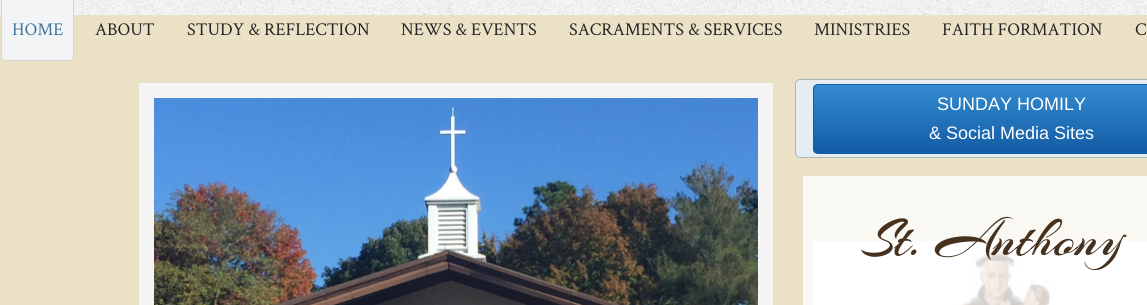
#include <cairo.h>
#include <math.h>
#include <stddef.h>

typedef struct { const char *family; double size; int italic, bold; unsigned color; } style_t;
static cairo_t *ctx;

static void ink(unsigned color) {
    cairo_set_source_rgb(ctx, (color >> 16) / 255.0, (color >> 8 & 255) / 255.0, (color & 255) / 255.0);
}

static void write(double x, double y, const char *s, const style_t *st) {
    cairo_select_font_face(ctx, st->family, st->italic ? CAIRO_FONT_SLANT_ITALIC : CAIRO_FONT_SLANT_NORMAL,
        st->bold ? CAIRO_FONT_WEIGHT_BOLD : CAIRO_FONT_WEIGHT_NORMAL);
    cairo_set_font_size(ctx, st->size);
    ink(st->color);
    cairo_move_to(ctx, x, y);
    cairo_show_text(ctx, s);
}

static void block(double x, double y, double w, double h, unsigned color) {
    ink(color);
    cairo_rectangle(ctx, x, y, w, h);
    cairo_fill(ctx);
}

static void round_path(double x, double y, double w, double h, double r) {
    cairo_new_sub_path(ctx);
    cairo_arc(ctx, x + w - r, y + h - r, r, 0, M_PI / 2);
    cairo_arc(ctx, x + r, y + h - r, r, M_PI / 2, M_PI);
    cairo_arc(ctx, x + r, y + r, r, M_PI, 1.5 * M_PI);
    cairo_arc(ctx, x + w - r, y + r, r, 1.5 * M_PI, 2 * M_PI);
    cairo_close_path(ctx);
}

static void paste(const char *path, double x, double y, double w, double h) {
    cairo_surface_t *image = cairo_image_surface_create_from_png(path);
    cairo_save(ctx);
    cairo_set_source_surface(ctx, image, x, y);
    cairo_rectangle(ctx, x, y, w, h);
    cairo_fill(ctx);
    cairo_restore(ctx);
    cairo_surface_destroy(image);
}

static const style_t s1 = {"Crimson Text", 18, 0, 0, 0x41779d};
static const style_t s2 = {"Crimson Text", 18, 0, 0, 0x252525};
static const style_t s3 = {"Liberation Sans", 18, 0, 0, 0xffffff};
static const style_t s4 = {"Arizonia", 56, 0, 0, 0x45311e};

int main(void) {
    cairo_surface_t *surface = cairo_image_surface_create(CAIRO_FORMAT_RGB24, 1147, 305);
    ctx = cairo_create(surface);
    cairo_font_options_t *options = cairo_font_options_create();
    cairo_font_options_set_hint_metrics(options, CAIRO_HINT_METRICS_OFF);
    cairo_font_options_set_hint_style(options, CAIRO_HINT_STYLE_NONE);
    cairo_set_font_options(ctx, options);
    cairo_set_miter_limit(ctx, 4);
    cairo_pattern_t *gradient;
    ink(0xffffff);
    cairo_paint(ctx);
    paste("pic1.png", 0, 0, 1147, 15);
    block(0, 15, 1147, 290, 0xebe1c7);
    ink(0xf2f4f5);
    cairo_new_path(ctx);
    cairo_move_to(ctx, 1, 0);
    cairo_line_to(ctx, 74, 0);
    cairo_line_to(ctx, 74, 56);
    cairo_curve_to(ctx, 74, 59, 72, 61, 69, 61);
    cairo_line_to(ctx, 6, 61);
    cairo_curve_to(ctx, 3, 61, 1, 59, 1, 56);
    cairo_close_path(ctx);
    cairo_fill(ctx);
    cairo_new_path(ctx);
    cairo_move_to(ctx, 1.5, -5.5);
    cairo_line_to(ctx, 73.5, -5.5);
    cairo_line_to(ctx, 73.5, 56);
    cairo_curve_to(ctx, 73.5, 58.5, 71.5, 60.5, 69, 60.5);
    cairo_line_to(ctx, 6, 60.5);
    cairo_curve_to(ctx, 3.5, 60.5, 1.5, 58.5, 1.5, 56);
    cairo_close_path(ctx);
    ink(0xd7d6d4);
    cairo_set_line_width(ctx, 1);
    cairo_stroke(ctx);
    write(12, 35, "HOME", &s1);
    write(95, 35, "ABOUT", &s2);
    write(187, 35, "STUDY & REFLECTION", &s2);
    write(401, 35, "NEWS & EVENTS", &s2);
    write(569, 35, "SACRAMENTS & SERVICES", &s2);
    write(814, 35, "MINISTRIES", &s2);
    write(942, 35, "FAITH FORMATION", &s2);
    write(1135, 35, "C", &s2);
    cairo_rectangle(ctx, 146.5, 90.5, 619, 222);
    ink(0xf5f5f5);
    cairo_set_line_width(ctx, 15);
    cairo_stroke(ctx);
    paste("pic2.png", 154, 98, 604, 207);
    ink(0xe5edf2);
    cairo_new_path(ctx);
    cairo_move_to(ctx, 800, 79);
    cairo_line_to(ctx, 1147, 79);
    cairo_line_to(ctx, 1147, 158);
    cairo_line_to(ctx, 800, 158);
    cairo_curve_to(ctx, 797, 158, 795, 156, 795, 153);
    cairo_line_to(ctx, 795, 84);
    cairo_curve_to(ctx, 795, 81, 797, 79, 800, 79);
    cairo_close_path(ctx);
    cairo_fill(ctx);
    round_path(795.5, 79.5, 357, 78, 4.5);
    ink(0xa9b4bb);
    cairo_set_line_width(ctx, 1);
    cairo_stroke(ctx);
    cairo_save(ctx);
    round_path(813, 84, 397, 70, 5);
    cairo_clip(ctx);
    gradient = cairo_pattern_create_linear(1012, 85, 1012, 153);
    cairo_pattern_add_color_stop_rgba(gradient, 0, 0.204, 0.545, 0.812, 1);
    cairo_pattern_add_color_stop_rgba(gradient, 1, 0.071, 0.361, 0.651, 1);
    cairo_set_source(ctx, gradient);
    cairo_pattern_destroy(gradient);
    cairo_rectangle(ctx, 813, 85, 334, 68);
    cairo_fill(ctx);
    cairo_restore(ctx);
    round_path(813.5, 84.5, 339, 69, 4.5);
    ink(0x125ca6);
    cairo_stroke(ctx);
    write(937, 110, "SUNDAY HOMILY", &s3);
    write(929, 139, "& Social Media Sites", &s3);
    paste("pic3.png", 813, 241, 334, 64);
    cairo_set_source_rgba(ctx, 1, 1, 1, 0.77);
    cairo_rectangle(ctx, 803, 176, 344, 129);
    cairo_fill(ctx);
    write(862, 255, "St. Anthony", &s4);
    cairo_surface_write_to_png(surface, "screenshot.png");
    cairo_font_options_destroy(options);
    cairo_destroy(ctx);
    cairo_surface_destroy(surface);
    return 0;
}
